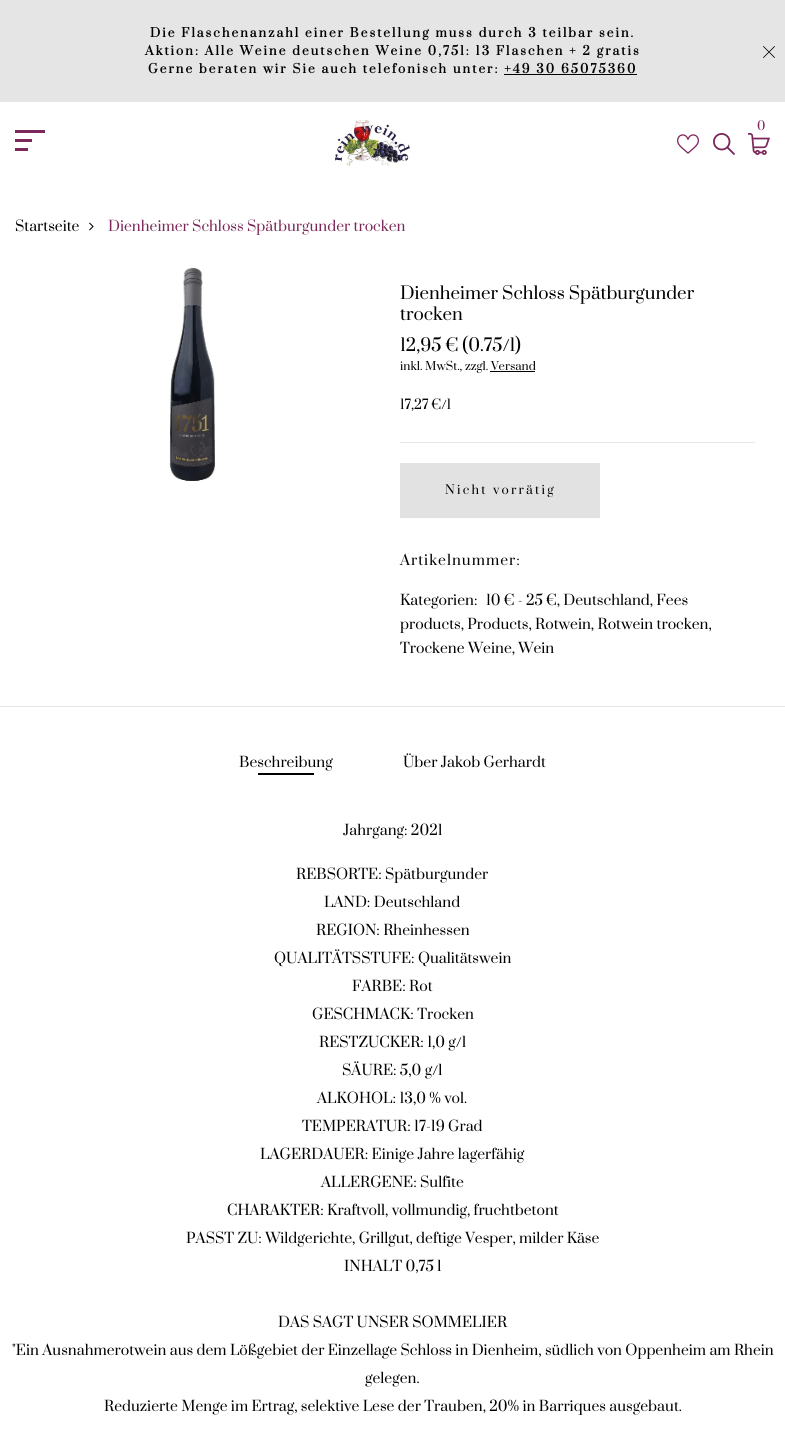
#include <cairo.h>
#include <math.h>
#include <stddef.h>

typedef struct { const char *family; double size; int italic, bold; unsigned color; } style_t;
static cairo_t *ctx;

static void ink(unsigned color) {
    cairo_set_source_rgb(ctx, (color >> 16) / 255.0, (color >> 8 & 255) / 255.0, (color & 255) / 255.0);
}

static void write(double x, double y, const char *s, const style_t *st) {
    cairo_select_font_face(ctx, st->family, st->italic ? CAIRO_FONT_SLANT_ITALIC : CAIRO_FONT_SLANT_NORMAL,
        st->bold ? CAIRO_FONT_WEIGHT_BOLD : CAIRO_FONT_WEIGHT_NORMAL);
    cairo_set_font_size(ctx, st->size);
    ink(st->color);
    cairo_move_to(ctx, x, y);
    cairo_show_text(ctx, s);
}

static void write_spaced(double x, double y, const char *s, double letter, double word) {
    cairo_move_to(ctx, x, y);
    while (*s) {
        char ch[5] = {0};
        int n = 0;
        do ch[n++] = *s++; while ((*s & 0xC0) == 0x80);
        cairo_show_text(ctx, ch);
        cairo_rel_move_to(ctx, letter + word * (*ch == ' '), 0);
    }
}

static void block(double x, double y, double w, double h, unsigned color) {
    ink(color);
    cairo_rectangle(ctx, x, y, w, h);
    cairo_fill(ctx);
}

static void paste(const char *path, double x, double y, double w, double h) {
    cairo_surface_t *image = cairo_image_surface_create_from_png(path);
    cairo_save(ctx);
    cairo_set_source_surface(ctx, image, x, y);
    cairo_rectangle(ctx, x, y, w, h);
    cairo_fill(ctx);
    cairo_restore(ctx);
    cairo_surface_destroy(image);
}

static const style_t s1 = {"Prata", 12, 0, 0, 0x7c2759};
static const style_t s2 = {"Prata", 14, 0, 0, 0x000000};
static const style_t s3 = {"Prata", 14, 0, 0, 0x7c2759};
static const style_t s4 = {"Prata", 17, 0, 0, 0x000000};
static const style_t s5 = {"Prata", 11.25, 0, 0, 0x000000};
static const style_t s6 = {"Prata", 13, 0, 0, 0x000000};

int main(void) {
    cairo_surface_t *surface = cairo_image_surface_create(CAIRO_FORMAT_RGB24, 785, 1430);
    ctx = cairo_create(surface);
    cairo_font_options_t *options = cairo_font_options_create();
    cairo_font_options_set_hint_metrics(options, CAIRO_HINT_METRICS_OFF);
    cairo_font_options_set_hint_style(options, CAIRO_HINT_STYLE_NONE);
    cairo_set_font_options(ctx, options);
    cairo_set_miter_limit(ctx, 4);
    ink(0xffffff);
    cairo_paint(ctx);
    block(0, 0, 785, 102, 0xe5e5e5);
    cairo_select_font_face(ctx, "Prata", CAIRO_FONT_SLANT_NORMAL, CAIRO_FONT_WEIGHT_BOLD);
    cairo_set_font_size(ctx, 12);
    ink(0x000000);
    write_spaced(150, 37, "Die Flaschenanzahl einer Bestellung muss durch 3 teilbar sein.", 2, 0);
    write_spaced(145, 55, "Aktion: Alle Weine deutschen Weine 0,75l: 13 Flaschen + 2 gratis", 2, 0);
    write_spaced(148, 73, "Gerne beraten wir Sie auch telefonisch unter: +49 30 65075360", 2, 0);
    block(504, 74, 133, 1, 0x000000);
    paste("pic1.png", 763, 46, 12, 12);
    paste("pic2.png", 335, 120, 75, 46);
    write(757, 130, "0", &s1);
    paste("pic3.png", 748, 133, 22, 22);
    paste("pic4.png", 677, 134, 22, 20);
    paste("pic5.png", 713, 133, 22, 22);
    block(15, 130, 30, 3, 0x7c2759);
    block(15, 139, 17, 3, 0x7c2759);
    block(15, 148, 13, 3, 0x7c2759);
    write(15, 231, "Startseite", &s2);
    paste("pic6.png", 89, 222, 5, 9);
    write(108, 231, "Dienheimer Schloss Spätburgunder trocken", &s3);
    paste("pic7.png", 169, 268, 46, 213);
    write(400, 299, "Dienheimer Schloss Spätburgunder", &s4);
    write(400, 320, "trocken", &s4);
    block(400, 442, 355, 1, 0xe7e7e7);
    write(400, 351, "12,95 € (0.75/l)", &s4);
    write(400, 370, "inkl. MwSt., zzgl. Versand", &s5);
    block(490, 371, 45, 1, 0x000000);
    write(400, 409, "17,27 €/l", &s6);
    block(400, 463, 200, 55, 0xe2e2e2);
    cairo_set_font_size(ctx, 12);
    ink(0x000000);
    write_spaced(445, 494, "Nicht vorrätig", 2.25, 0);
    cairo_set_font_size(ctx, 14);
    write_spaced(400, 565, "Artikelnummer:", 1, 0);
    write(400, 605, "Kategorien:", &s2);
    write(486, 605, "10 € - 25 €, Deutschland, Fees", &s2);
    write(400, 629, "products, Products, Rotwein, Rotwein trocken,", &s2);
    write(400, 653, "Trockene Weine, Wein", &s2);
    block(0, 706, 785, 1, 0xe4e4e4);
    write(239, 767, "Beschreibung", &s2);
    block(258, 773, 56, 2, 0x000000);
    write(403, 767, "Über Jakob Gerhardt", &s2);
    write(343, 835, "Jahrgang: 2021", &s2);
    write(296, 879, "REBSORTE: Spätburgunder", &s2);
    write(324, 907, "LAND: Deutschland", &s2);
    write(316, 935, "REGION: Rheinhessen", &s2);
    write(274, 963, "QUALITÄTSSTUFE: Qualitätswein", &s2);
    write(352, 991, "FARBE: Rot", &s2);
    write(312, 1019, "GESCHMACK: Trocken", &s2);
    write(319, 1047, "RESTZUCKER: 1,0 g/l", &s2);
    write(342, 1075, "SÄURE: 5,0 g/l", &s2);
    write(317, 1103, "ALKOHOL: 13,0 % vol.", &s2);
    write(302, 1131, "TEMPERATUR: 17-19 Grad", &s2);
    write(260, 1159, "LAGERDAUER: Einige Jahre lagerfähig", &s2);
    write(321, 1187, "ALLERGENE: Sulfite", &s2);
    write(227, 1215, "CHARAKTER: Kraftvoll, vollmundig, fruchtbetont", &s2);
    write(186, 1243, "PASST ZU: Wildgerichte, Grillgut, deftige Vesper, milder Käse", &s2);
    write(344, 1271, "INHALT 0,75 l", &s2);
    write(278, 1327, "DAS SAGT UNSER SOMMELIER", &s2);
    write(12, 1355, "\"Ein Ausnahmerotwein aus dem Lößgebiet der Einzellage Schloss in Dienheim, südlich von Oppenheim am Rhein", &s2);
    write(365, 1383, "gelegen.", &s2);
    write(104, 1411, "Reduzierte Menge im Ertrag, selektive Lese der Trauben, 20% in Barriques ausgebaut.", &s2);
    cairo_surface_write_to_png(surface, "screenshot.png");
    cairo_font_options_destroy(options);
    cairo_destroy(ctx);
    cairo_surface_destroy(surface);
    return 0;
}
